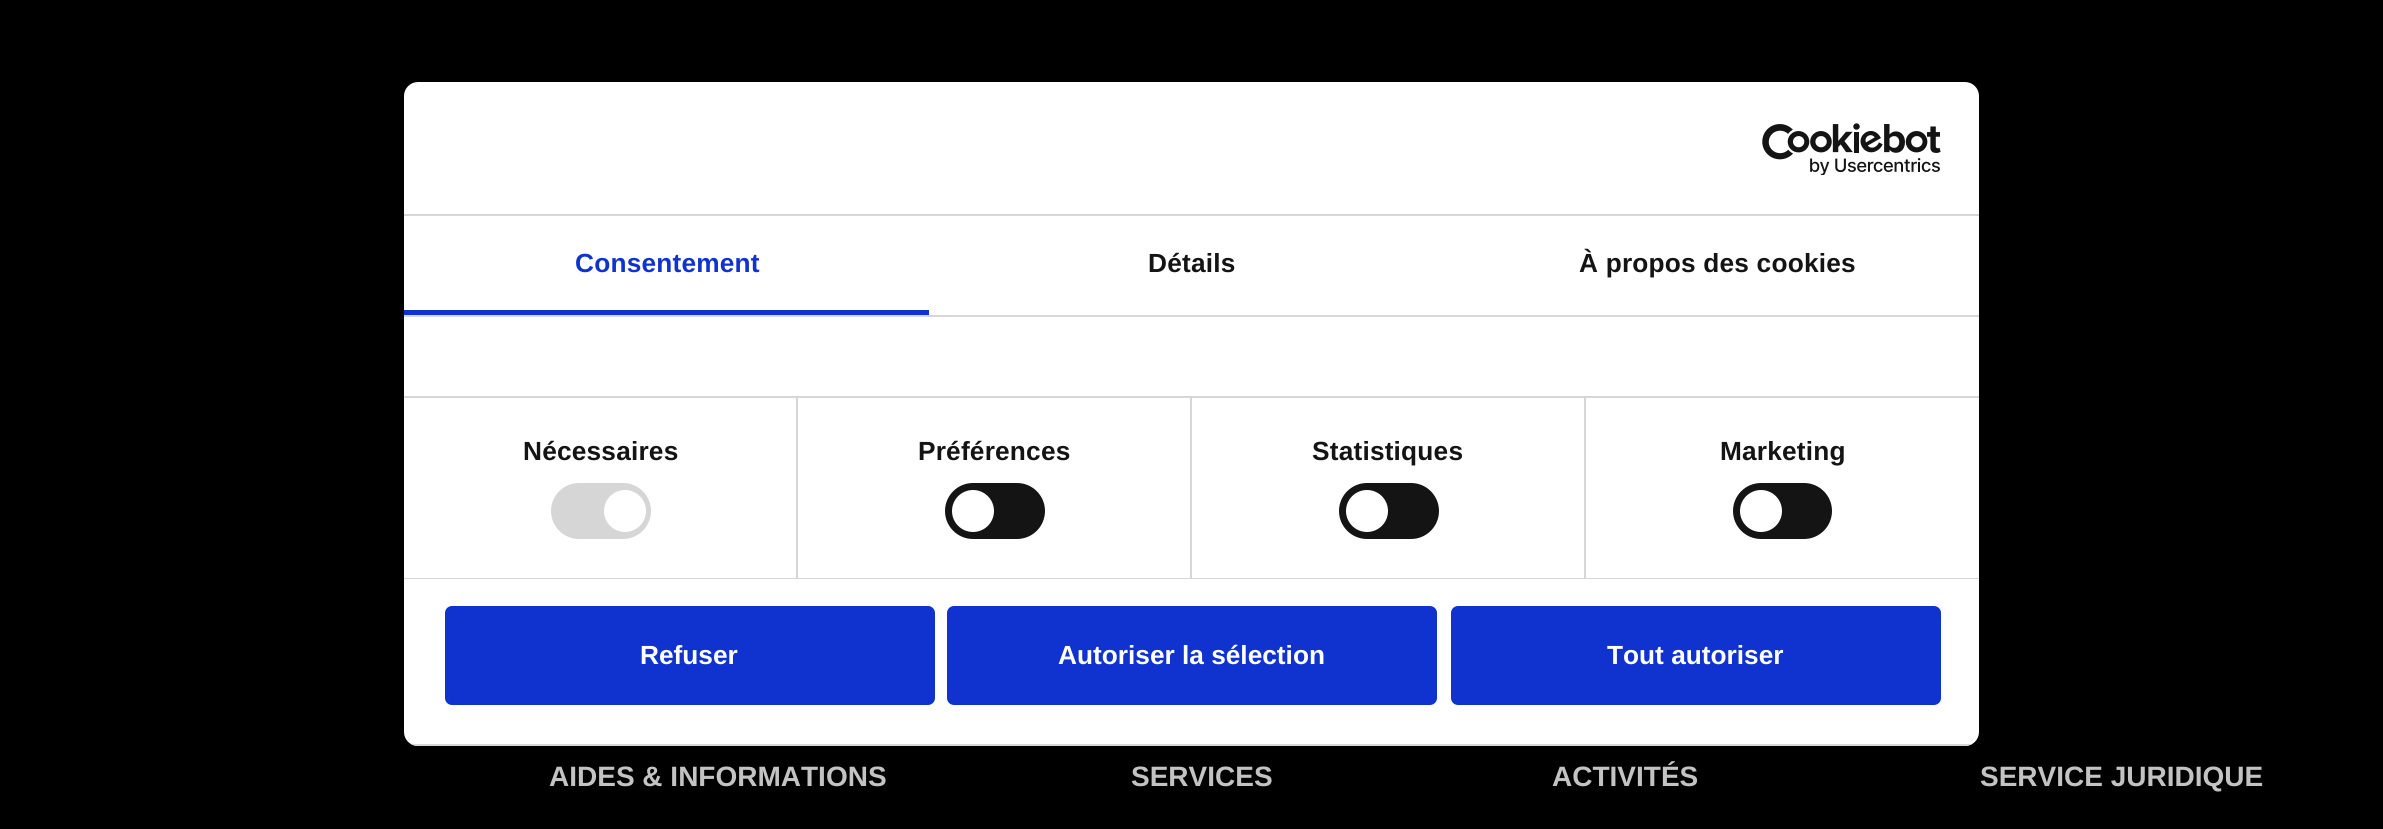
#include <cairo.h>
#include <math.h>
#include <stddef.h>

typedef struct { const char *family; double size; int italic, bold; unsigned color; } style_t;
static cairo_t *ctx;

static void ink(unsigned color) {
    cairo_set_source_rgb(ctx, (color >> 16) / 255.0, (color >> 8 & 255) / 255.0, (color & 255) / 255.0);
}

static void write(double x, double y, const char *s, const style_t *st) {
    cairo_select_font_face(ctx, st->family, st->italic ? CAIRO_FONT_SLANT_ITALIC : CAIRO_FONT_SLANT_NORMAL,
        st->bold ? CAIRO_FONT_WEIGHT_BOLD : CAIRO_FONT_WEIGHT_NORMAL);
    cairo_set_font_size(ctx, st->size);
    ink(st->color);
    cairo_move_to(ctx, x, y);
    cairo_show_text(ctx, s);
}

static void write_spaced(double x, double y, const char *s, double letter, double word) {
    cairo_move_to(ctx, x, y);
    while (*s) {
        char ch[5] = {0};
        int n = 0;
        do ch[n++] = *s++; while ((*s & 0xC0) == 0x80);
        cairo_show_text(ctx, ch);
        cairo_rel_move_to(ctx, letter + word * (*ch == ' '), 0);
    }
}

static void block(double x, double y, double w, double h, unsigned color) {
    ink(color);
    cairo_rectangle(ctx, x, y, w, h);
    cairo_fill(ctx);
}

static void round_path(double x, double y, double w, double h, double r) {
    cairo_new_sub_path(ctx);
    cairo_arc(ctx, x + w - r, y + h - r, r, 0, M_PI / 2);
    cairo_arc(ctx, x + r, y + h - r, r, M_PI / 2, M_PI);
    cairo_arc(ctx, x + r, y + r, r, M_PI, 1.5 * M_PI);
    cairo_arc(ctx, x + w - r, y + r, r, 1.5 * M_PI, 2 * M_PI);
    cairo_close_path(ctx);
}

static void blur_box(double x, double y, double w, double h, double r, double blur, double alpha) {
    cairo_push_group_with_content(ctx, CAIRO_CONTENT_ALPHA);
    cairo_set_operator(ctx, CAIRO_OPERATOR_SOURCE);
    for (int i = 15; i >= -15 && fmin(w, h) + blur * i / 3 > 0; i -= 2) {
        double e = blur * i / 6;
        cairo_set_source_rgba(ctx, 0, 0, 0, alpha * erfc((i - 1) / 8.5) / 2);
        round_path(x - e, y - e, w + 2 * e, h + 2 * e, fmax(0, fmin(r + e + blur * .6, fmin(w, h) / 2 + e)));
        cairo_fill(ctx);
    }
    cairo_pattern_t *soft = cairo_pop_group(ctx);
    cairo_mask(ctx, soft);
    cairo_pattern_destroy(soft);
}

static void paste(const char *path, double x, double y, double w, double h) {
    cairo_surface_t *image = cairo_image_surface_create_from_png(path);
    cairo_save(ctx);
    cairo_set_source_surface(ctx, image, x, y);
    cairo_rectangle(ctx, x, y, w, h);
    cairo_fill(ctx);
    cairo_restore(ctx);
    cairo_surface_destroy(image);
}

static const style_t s1 = {"Liberation Sans", 26.25, 0, 1, 0xffffff};
static const style_t s2 = {"Liberation Sans", 28, 0, 1, 0xc3c3c3};

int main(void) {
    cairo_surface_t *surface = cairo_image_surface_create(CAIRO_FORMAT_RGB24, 2383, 829);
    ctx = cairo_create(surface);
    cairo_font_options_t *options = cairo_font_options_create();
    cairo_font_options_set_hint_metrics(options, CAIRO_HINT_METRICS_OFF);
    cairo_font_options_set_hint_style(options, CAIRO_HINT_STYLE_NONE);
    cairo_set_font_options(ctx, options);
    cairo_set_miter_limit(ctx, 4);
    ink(0x000000);
    cairo_paint(ctx);
    blur_box(404, 138, 1575, 664, 14, 59.5, 0.3);
    ink(0xffffff);
    round_path(404, 82, 1575, 664, 14);
    cairo_fill(ctx);
    block(404, 214, 1575, 2, 0xd6d6d6);
    paste("pic1.png", 1762, 123, 179, 52);
    block(404, 315, 1575, 2, 0xd6d6d6);
    block(404, 310, 525, 5, 0x1032cf);
    cairo_select_font_face(ctx, "Liberation Sans", CAIRO_FONT_SLANT_NORMAL, CAIRO_FONT_WEIGHT_BOLD);
    cairo_set_font_size(ctx, 26.25);
    write_spaced(575, 272, "Consentement", 0.2, 0);
    ink(0x141414);
    write_spaced(1148, 272, "Détails", 0.2, 0);
    write_spaced(1579, 272, "À propos des cookies", 0.2, 0);
    block(796, 397, 2, 181, 0xd6d6d6);
    block(1190, 397, 2, 181, 0xd6d6d6);
    block(1584, 397, 2, 181, 0xd6d6d6);
    block(404, 396, 1575, 2, 0xd6d6d6);
    block(404, 578, 1575, 1, 0xd6d6d6);
    ink(0x141414);
    write_spaced(523, 460, "Nécessaires", 0.2, 0);
    ink(0xd6d6d6);
    round_path(551, 483, 100, 56, 28);
    cairo_fill(ctx);
    ink(0xffffff);
    cairo_arc(ctx, 625, 511, 21, 0, 2 * M_PI);
    cairo_fill(ctx);
    ink(0x141414);
    write_spaced(918, 460, "Préférences", 0.2, 0);
    round_path(945, 483, 100, 56, 28);
    cairo_fill(ctx);
    ink(0xffffff);
    cairo_arc(ctx, 973, 511, 21, 0, 2 * M_PI);
    cairo_fill(ctx);
    ink(0x141414);
    write_spaced(1312, 460, "Statistiques", 0.2, 0);
    round_path(1339, 483, 100, 56, 28);
    cairo_fill(ctx);
    ink(0xffffff);
    cairo_arc(ctx, 1367, 511, 21, 0, 2 * M_PI);
    cairo_fill(ctx);
    ink(0x141414);
    write_spaced(1720, 460, "Marketing", 0.2, 0);
    round_path(1733, 483, 99, 56, 28);
    cairo_fill(ctx);
    ink(0xffffff);
    cairo_arc(ctx, 1761, 511, 21, 0, 2 * M_PI);
    cairo_fill(ctx);
    cairo_save(ctx);
    round_path(404, 82, 1575, 664, 14);
    cairo_clip(ctx);
    block(404, 744, 1575, 2, 0xd6d6d6);
    cairo_restore(ctx);
    ink(0x1032cf);
    round_path(447, 608, 486, 95, 5);
    cairo_fill_preserve(ctx);
    cairo_set_line_width(ctx, 4);
    cairo_stroke(ctx);
    write(640, 664, "Refuser", &s1);
    ink(0x1032cf);
    round_path(949, 608, 486, 95, 5);
    cairo_fill_preserve(ctx);
    cairo_stroke(ctx);
    write(1058, 664, "Autoriser la sélection", &s1);
    ink(0x1032cf);
    round_path(1453, 608, 486, 95, 5);
    cairo_fill_preserve(ctx);
    cairo_stroke(ctx);
    write(1607, 664, "Tout autoriser", &s1);
    write(549, 786, "AIDES & INFORMATIONS", &s2);
    write(1131, 786, "SERVICES", &s2);
    write(1552, 786, "ACTIVITÉS", &s2);
    write(1980, 786, "SERVICE JURIDIQUE", &s2);
    cairo_surface_write_to_png(surface, "screenshot.png");
    cairo_font_options_destroy(options);
    cairo_destroy(ctx);
    cairo_surface_destroy(surface);
    return 0;
}
